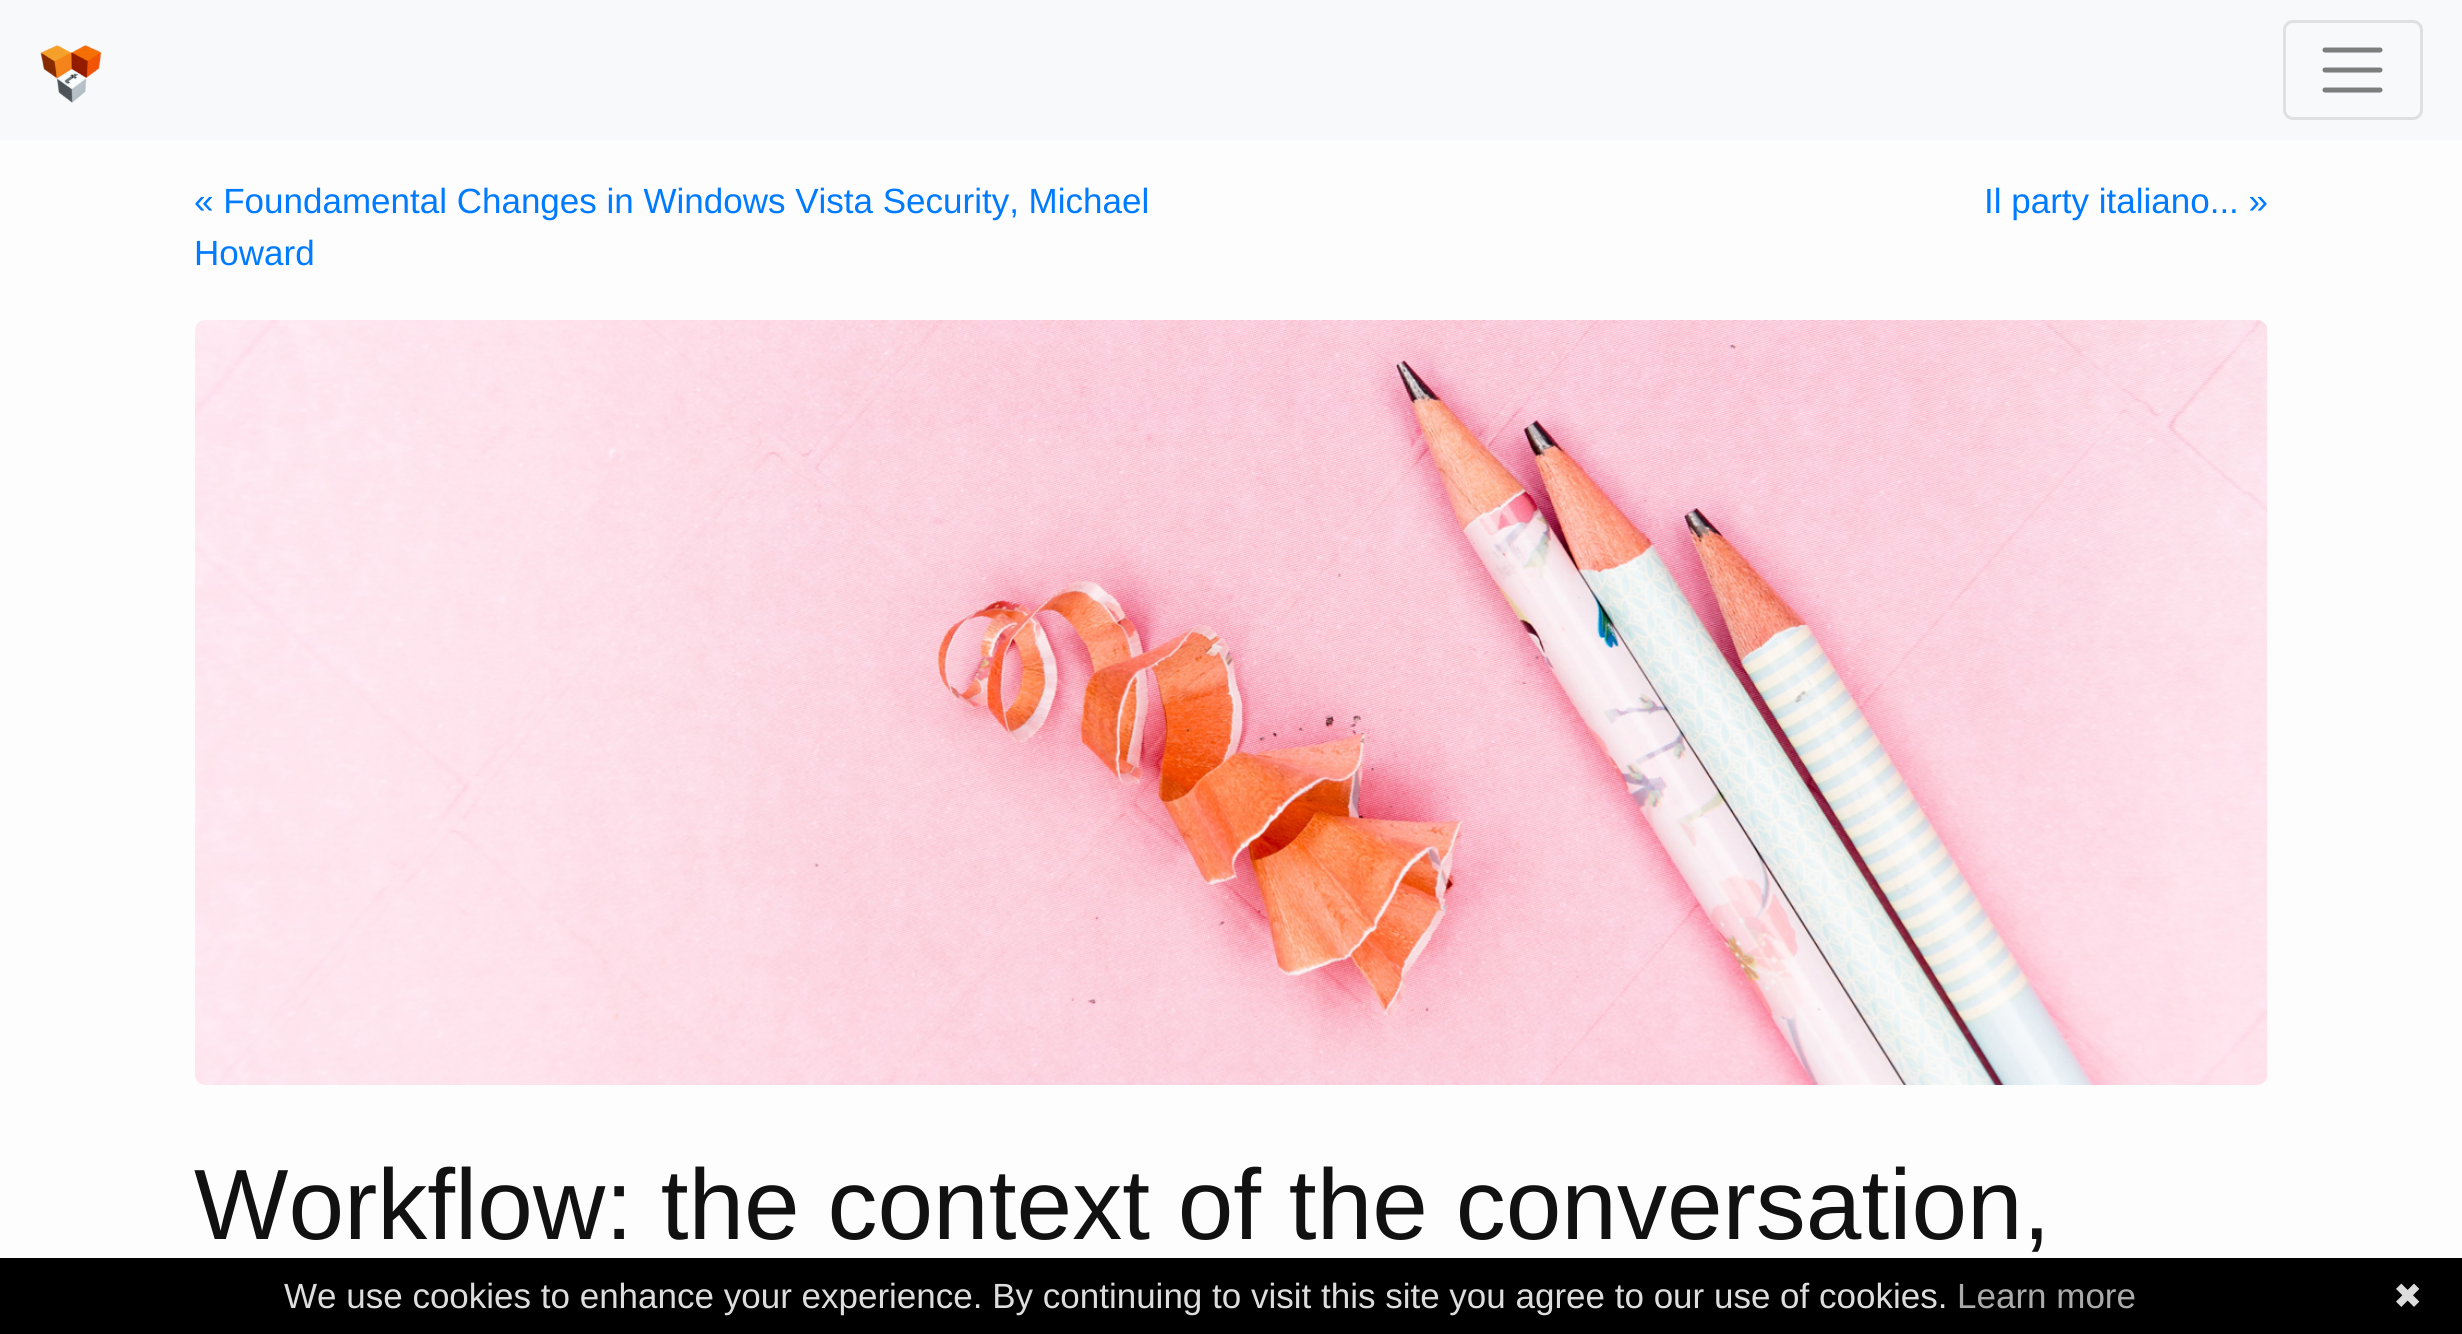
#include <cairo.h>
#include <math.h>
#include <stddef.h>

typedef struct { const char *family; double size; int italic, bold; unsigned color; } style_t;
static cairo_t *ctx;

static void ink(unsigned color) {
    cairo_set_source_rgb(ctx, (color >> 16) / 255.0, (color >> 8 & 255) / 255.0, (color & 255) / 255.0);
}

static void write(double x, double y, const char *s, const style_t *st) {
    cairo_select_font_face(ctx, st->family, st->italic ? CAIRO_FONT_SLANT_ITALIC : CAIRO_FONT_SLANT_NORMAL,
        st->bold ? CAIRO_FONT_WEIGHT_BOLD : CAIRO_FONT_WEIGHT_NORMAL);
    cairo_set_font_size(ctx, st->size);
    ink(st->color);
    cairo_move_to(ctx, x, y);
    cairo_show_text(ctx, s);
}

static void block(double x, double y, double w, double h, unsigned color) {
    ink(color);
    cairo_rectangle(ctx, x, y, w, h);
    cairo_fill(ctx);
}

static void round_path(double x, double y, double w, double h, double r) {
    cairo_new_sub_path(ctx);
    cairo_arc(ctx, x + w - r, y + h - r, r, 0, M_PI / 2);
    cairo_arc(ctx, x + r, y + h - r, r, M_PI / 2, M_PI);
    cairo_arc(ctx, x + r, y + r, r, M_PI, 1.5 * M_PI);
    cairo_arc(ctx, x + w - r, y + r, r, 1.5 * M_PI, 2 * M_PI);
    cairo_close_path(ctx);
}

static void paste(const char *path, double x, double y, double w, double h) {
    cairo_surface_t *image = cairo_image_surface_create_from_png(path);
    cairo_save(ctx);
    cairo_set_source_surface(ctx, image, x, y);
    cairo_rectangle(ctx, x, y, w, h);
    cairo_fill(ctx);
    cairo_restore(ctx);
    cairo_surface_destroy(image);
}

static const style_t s1 = {"Liberation Sans", 35, 0, 0, 0x007bff};
static const style_t s2 = {"Liberation Sans", 100, 0, 0, 0x111111};
static const style_t s3 = {"Liberation Sans", 35, 0, 0, 0xdddddd};
static const style_t s4 = {"Liberation Sans", 35, 0, 0, 0xaaaaaa};
static const style_t s5 = {"DejaVu Sans", 35, 0, 0, 0xdddddd};

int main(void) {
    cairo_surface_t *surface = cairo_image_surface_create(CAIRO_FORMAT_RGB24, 2462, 1334);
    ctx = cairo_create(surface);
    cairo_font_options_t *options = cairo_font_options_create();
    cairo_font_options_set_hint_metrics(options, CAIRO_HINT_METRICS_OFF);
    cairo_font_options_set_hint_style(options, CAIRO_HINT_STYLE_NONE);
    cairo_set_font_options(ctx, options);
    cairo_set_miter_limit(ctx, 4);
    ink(0xfdfdfd);
    cairo_paint(ctx);
    block(0, 0, 2462, 140, 0xf8f9fa);
    paste("pic1.png", 40, 45, 62, 58);
    round_path(2284.5, 21.5, 137, 97, 8.5);
    ink(0xdfe0e1);
    cairo_set_line_width(ctx, 3);
    cairo_stroke(ctx);
    cairo_new_path(ctx);
    cairo_move_to(ctx, 2325, 50);
    cairo_line_to(ctx, 2380, 50);
    cairo_move_to(ctx, 2325, 70);
    cairo_line_to(ctx, 2380, 70);
    cairo_move_to(ctx, 2325, 90);
    cairo_line_to(ctx, 2380, 90);
    ink(0x7c7d7d);
    cairo_set_line_width(ctx, 5);
    cairo_set_line_cap(ctx, CAIRO_LINE_CAP_ROUND);
    cairo_stroke(ctx);
    write(194, 213, "« Foundamental Changes in Windows Vista Security, Michael", &s1);
    write(194, 265, "Howard", &s1);
    write(1984, 213, "Il party italiano... »", &s1);
    paste("pic2.png", 195, 320, 2073, 765);
    write(194, 1239, "Workflow: the context of the conversation,", &s2);
    block(0, 1258, 2462, 76, 0x000000);
    write(284, 1308, "We use cookies to enhance your experience. By continuing to visit this site you agree to our use of cookies.", &s3);
    write(1957, 1308, "Learn more", &s4);
    write(2393, 1308, "✖", &s5);
    cairo_surface_write_to_png(surface, "screenshot.png");
    cairo_font_options_destroy(options);
    cairo_destroy(ctx);
    cairo_surface_destroy(surface);
    return 0;
}
